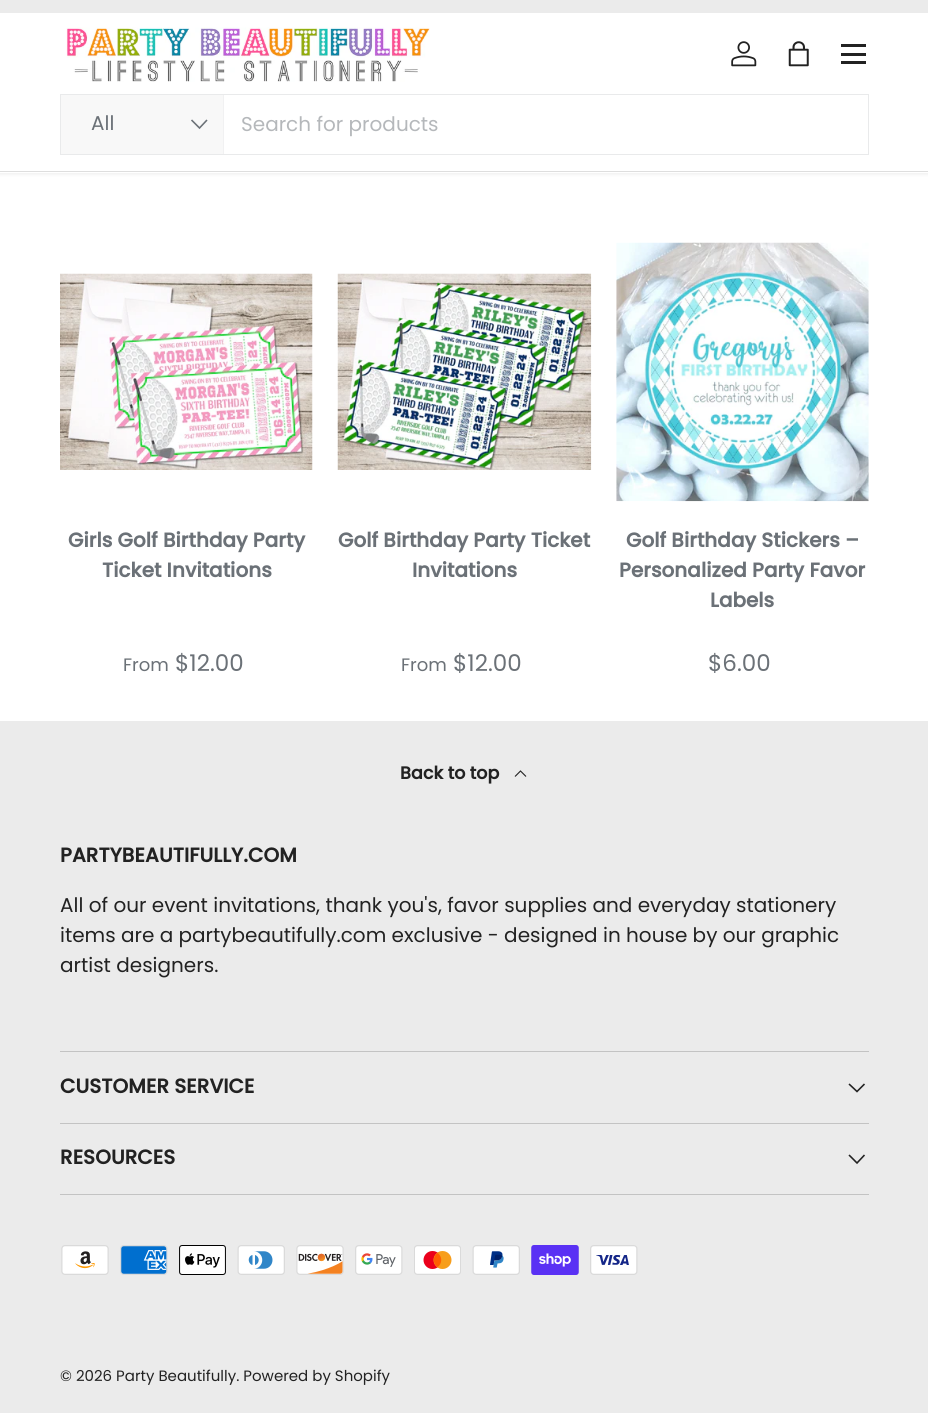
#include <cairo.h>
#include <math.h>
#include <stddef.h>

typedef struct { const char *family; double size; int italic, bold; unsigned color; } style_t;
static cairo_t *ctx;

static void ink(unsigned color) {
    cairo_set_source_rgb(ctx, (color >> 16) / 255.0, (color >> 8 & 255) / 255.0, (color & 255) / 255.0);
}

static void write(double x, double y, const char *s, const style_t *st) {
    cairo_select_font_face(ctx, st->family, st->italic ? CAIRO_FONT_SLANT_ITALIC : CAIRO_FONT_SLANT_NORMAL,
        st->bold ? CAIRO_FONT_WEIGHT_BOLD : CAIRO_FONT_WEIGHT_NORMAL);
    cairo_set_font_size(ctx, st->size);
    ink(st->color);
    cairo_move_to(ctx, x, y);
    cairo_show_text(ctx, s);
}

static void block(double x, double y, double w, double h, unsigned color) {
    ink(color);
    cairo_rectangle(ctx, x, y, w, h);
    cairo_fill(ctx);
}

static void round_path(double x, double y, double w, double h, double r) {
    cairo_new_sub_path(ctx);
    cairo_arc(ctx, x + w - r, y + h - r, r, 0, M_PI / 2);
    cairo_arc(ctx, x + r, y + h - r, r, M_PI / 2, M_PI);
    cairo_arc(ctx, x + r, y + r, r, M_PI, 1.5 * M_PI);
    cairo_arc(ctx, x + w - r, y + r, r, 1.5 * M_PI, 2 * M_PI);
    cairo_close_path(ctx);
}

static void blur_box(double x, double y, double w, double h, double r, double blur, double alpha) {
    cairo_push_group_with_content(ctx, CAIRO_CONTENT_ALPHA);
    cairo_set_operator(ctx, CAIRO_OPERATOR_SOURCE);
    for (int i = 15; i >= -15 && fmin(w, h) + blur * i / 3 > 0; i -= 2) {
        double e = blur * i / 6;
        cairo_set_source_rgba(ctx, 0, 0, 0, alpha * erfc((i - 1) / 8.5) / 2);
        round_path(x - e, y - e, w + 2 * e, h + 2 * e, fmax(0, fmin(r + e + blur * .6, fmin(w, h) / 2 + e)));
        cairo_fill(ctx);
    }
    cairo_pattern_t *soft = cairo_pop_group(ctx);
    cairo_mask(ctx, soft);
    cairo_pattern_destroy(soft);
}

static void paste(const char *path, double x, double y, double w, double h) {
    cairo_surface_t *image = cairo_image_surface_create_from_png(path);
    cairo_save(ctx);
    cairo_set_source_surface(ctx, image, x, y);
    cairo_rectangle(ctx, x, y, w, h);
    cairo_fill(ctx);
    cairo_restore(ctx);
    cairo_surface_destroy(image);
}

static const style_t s1 = {"Poppins", 20, 0, 0, 0x6b7177};
static const style_t s2 = {"Poppins", 20, 0, 0, 0xb5b8bb};
static const style_t s3 = {"Poppins", 20, 0, 1, 0x6b7177};
static const style_t s4 = {"Poppins", 18, 0, 0, 0x6b7177};
static const style_t s5 = {"Poppins", 23, 0, 0, 0x6b7177};
static const style_t s6 = {"Poppins", 17.5, 0, 1, 0x222222};
static const style_t s7 = {"Poppins", 20, 0, 1, 0x222222};
static const style_t s8 = {"Poppins", 20, 0, 0, 0x222222};
static const style_t s9 = {"Poppins", 15, 0, 0, 0x222222};

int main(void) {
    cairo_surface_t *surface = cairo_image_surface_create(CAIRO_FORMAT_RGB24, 928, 1413);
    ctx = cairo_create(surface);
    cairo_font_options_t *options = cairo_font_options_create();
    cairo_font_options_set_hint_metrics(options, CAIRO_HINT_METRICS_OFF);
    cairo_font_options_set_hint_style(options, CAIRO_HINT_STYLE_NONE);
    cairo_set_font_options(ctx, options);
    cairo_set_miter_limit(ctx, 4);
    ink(0xffffff);
    cairo_paint(ctx);
    ink(0x000000);
    blur_box(-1, 11, 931, 163, 0, 2, 0.08);
    block(0, 0, 928, 13, 0xebebeb);
    block(0, 13, 928, 160, 0xffffff);
    paste("pic1.png", 66, 27, 364, 55);
    paste("pic2.png", 731, 41, 26, 26);
    paste("pic3.png", 788, 41, 21, 26);
    block(841, 44, 25, 3, 0x222222);
    block(841, 61, 25, 3, 0x222222);
    block(841, 53, 25, 3, 0x222222);
    cairo_rectangle(ctx, 60.5, 94.5, 808, 60);
    ink(0xe9eaeb);
    cairo_set_line_width(ctx, 1);
    cairo_stroke(ctx);
    block(61, 95, 162, 59, 0xf8f8f8);
    block(223, 95, 1, 59, 0xf1f1f2);
    write(91, 130, "All", &s1);
    cairo_new_path(ctx);
    cairo_move_to(ctx, 207, 120);
    cairo_line_to(ctx, 199.5, 128);
    cairo_line_to(ctx, 191.5, 120);
    cairo_set_line_width(ctx, 1.6);
    cairo_stroke(ctx);
    write(241, 131, "Search for products", &s2);
    block(0, 171, 928, 1, 0xdedede);
    paste("pic4.png", 60, 273, 253, 197);
    write(68, 547, "Girls Golf Birthday Party", &s3);
    write(102, 577, "Ticket Invitations", &s3);
    write(123, 671, "From", &s4);
    write(175, 671, "$12.00", &s5);
    paste("pic5.png", 337, 273, 255, 197);
    write(338, 547, "Golf Birthday Party Ticket", &s3);
    write(412, 577, "Invitations", &s3);
    write(401, 671, "From", &s4);
    write(453, 671, "$12.00", &s5);
    paste("pic6.png", 616, 242, 253, 260);
    write(626, 547, "Golf Birthday Stickers –", &s3);
    write(619, 577, "Personalized Party Favor", &s3);
    write(710, 607, "Labels", &s3);
    write(708, 671, "$6.00", &s5);
    block(0, 721, 928, 692, 0xebebeb);
    write(400, 779, "Back to top", &s6);
    cairo_new_path(ctx);
    cairo_move_to(ctx, 515, 776.5);
    cairo_line_to(ctx, 520.5, 771);
    cairo_line_to(ctx, 526, 776.5);
    cairo_set_line_width(ctx, 1.1);
    cairo_stroke(ctx);
    write(60, 862, "PARTYBEAUTIFULLY.COM", &s7);
    write(60, 912, "All of our event invitations, thank you's, favor supplies and everyday stationery", &s8);
    write(60, 942, "items are a partybeautifully.com exclusive - designed in house by our graphic", &s8);
    write(60, 972, "artist designers.", &s8);
    block(60, 1051, 809, 1, 0xc3c3c3);
    block(60, 1123, 809, 1, 0xc3c3c3);
    write(60, 1093, "CUSTOMER SERVICE", &s7);
    cairo_new_path(ctx);
    cairo_move_to(ctx, 864.5, 1084);
    cairo_line_to(ctx, 857, 1091.5);
    cairo_line_to(ctx, 849, 1084);
    cairo_set_line_width(ctx, 1.6);
    cairo_stroke(ctx);
    block(60, 1194, 809, 1, 0xc3c3c3);
    write(60, 1164, "RESOURCES", &s7);
    cairo_new_path(ctx);
    cairo_move_to(ctx, 864.5, 1155);
    cairo_line_to(ctx, 857, 1163);
    cairo_line_to(ctx, 849, 1155);
    cairo_stroke(ctx);
    paste("pic7.png", 61, 1245, 48, 30);
    paste("pic8.png", 120, 1245, 48, 30);
    paste("pic9.png", 179, 1245, 47, 30);
    paste("pic10.png", 237, 1245, 48, 30);
    paste("pic11.png", 296, 1245, 48, 30);
    paste("pic12.png", 355, 1245, 48, 30);
    paste("pic13.png", 414, 1245, 47, 30);
    paste("pic14.png", 472, 1245, 48, 30);
    paste("pic15.png", 531, 1245, 48, 30);
    paste("pic16.png", 590, 1245, 48, 30);
    write(60, 1381, "© 2026 Party Beautifully. Powered by Shopify", &s9);
    cairo_surface_write_to_png(surface, "screenshot.png");
    cairo_font_options_destroy(options);
    cairo_destroy(ctx);
    cairo_surface_destroy(surface);
    return 0;
}
